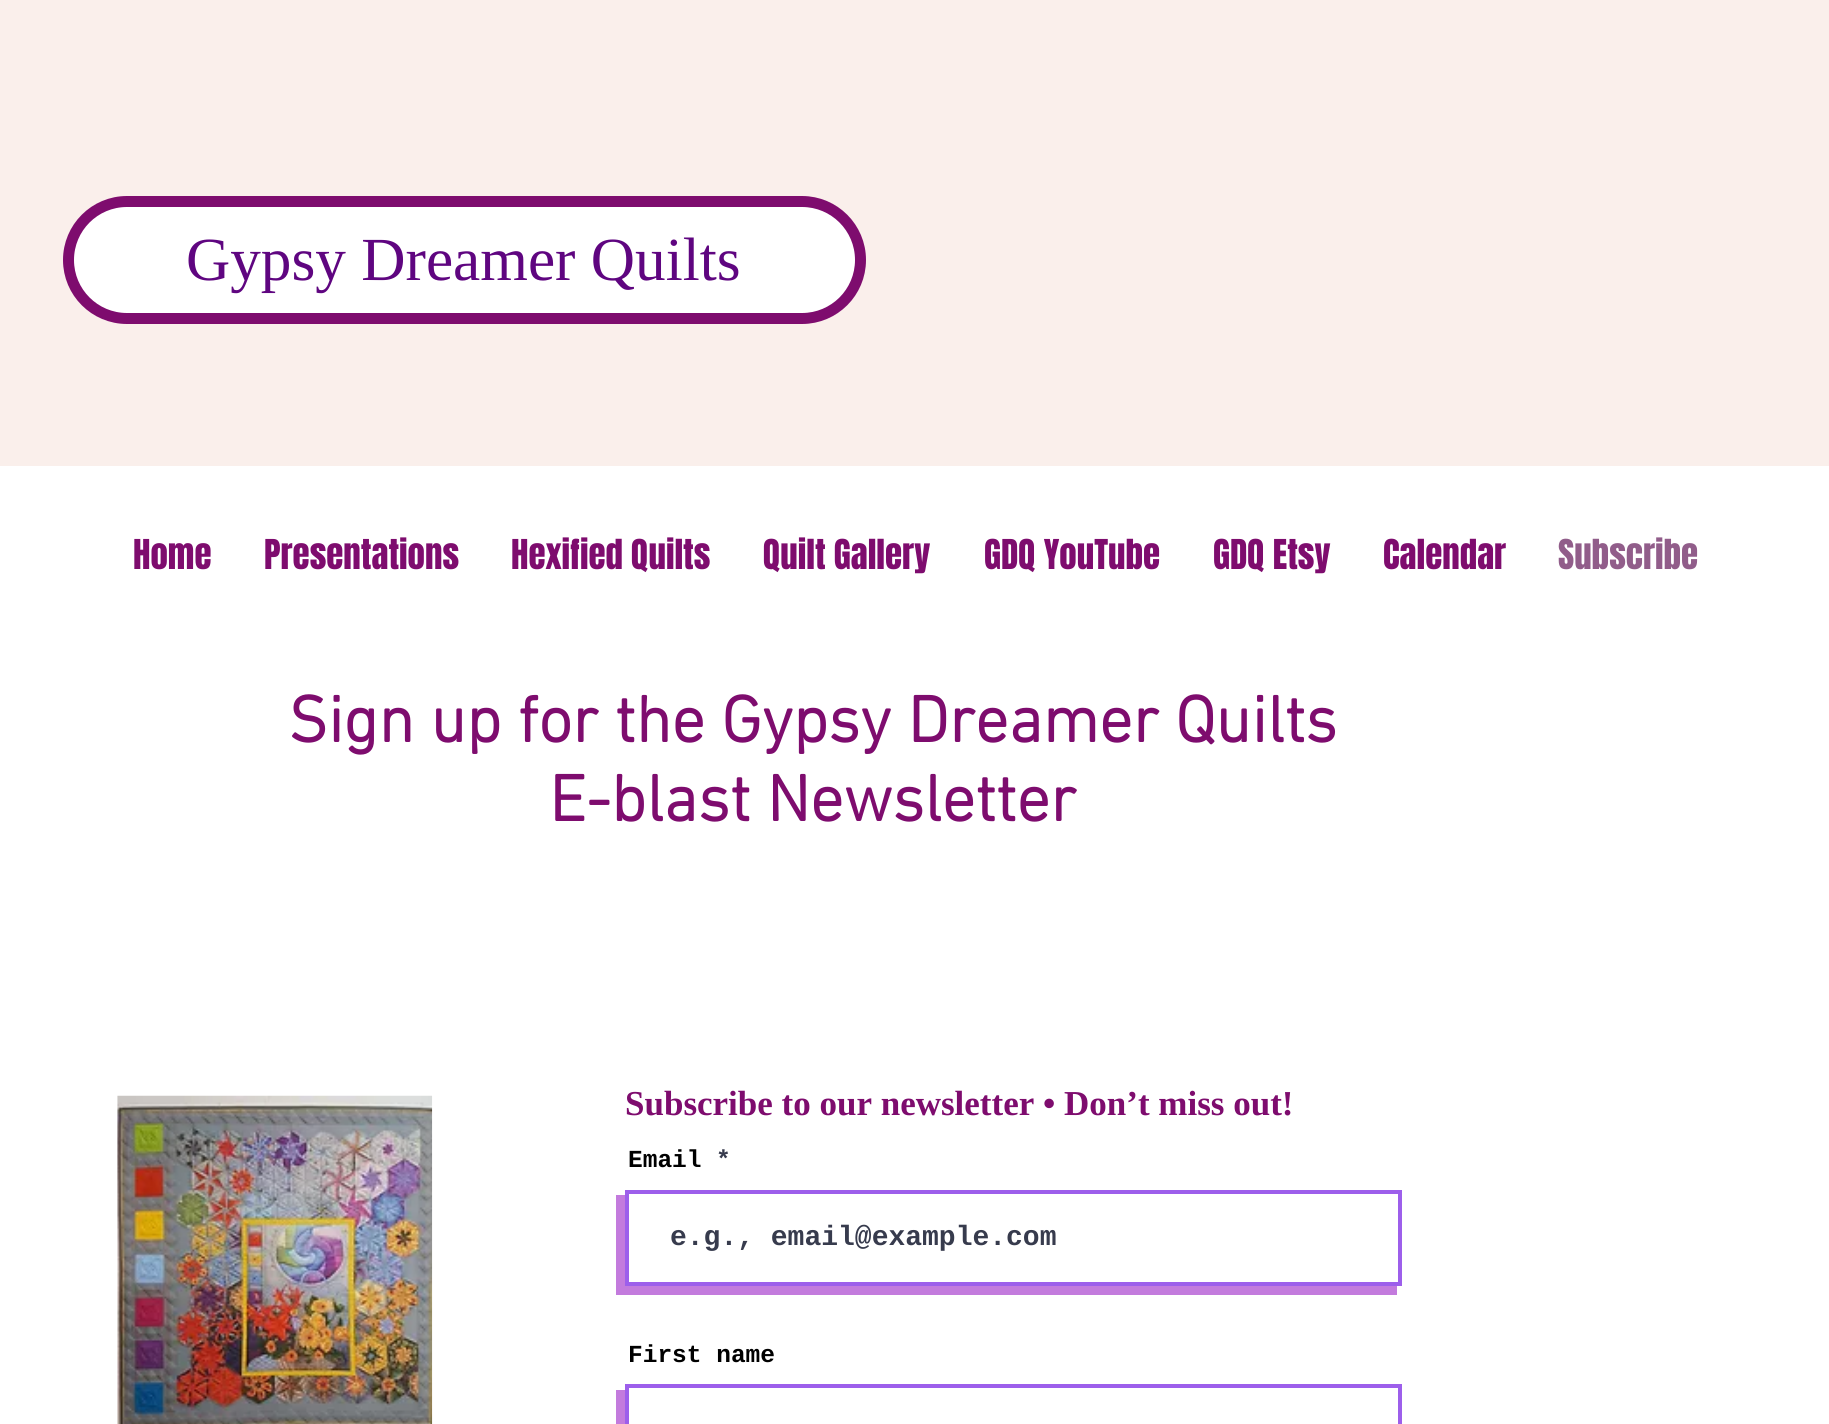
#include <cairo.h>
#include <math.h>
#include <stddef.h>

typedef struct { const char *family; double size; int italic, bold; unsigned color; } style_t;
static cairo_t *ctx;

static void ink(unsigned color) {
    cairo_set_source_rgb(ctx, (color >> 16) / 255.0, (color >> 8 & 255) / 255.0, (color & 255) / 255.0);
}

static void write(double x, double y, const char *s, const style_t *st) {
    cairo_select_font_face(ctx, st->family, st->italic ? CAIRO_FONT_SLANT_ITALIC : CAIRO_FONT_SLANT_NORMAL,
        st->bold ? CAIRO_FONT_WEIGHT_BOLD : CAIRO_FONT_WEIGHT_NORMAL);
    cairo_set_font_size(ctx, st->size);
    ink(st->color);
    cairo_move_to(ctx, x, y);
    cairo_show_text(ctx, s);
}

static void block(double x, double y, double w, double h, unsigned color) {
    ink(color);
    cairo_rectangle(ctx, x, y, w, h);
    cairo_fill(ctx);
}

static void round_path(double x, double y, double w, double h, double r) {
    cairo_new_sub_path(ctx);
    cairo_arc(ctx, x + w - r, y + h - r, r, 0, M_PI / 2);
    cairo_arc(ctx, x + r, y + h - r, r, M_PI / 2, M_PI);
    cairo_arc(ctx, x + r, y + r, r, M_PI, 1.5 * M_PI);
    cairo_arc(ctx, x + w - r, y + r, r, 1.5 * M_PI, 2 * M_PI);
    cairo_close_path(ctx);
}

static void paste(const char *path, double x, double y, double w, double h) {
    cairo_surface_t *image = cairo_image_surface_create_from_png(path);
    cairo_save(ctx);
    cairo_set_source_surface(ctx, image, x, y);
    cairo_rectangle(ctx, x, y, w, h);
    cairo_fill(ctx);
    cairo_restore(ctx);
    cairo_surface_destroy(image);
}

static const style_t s1 = {"Liberation Serif", 61.25, 0, 0, 0x5f0580};
static const style_t s2 = {"Anton", 35, 0, 0, 0x7e0c6e};
static const style_t s3 = {"Anton", 35, 0, 0, 0x915d8a};
static const style_t s4 = {"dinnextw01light", 66.5, 0, 1, 0x7e0c6e};
static const style_t s5 = {"Liberation Serif", 35, 0, 1, 0x7e0c6e};
static const style_t s6 = {"Liberation Mono", 24.5, 0, 1, 0x000000};
static const style_t s7 = {"Liberation Mono", 24.5, 0, 1, 0x373b4d};
static const style_t s8 = {"Liberation Mono", 28, 0, 1, 0x373b4d};

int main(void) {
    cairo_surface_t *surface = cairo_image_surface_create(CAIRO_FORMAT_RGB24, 1829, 1424);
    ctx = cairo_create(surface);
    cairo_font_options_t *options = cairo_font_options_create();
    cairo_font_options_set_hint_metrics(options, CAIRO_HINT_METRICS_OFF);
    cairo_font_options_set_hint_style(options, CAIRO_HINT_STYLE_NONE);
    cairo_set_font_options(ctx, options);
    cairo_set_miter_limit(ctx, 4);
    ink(0xffffff);
    cairo_paint(ctx);
    block(0, 0, 1829, 466, 0xfaefeb);
    ink(0xffffff);
    round_path(68.5, 201.5, 792, 117, 58.5);
    cairo_fill_preserve(ctx);
    ink(0x7e0c6e);
    cairo_set_line_width(ctx, 11);
    cairo_stroke(ctx);
    write(186, 280, "Gypsy Dreamer Quilts", &s1);
    write(133, 569, "Home", &s2);
    write(264, 569, "Presentations", &s2);
    write(511, 569, "Hexified Quilts", &s2);
    write(763, 569, "Quilt Gallery", &s2);
    write(984, 569, "GDQ YouTube", &s2);
    write(1213, 569, "GDQ Etsy", &s2);
    write(1383, 569, "Calendar", &s2);
    write(1558, 569, "Subscribe", &s3);
    write(288, 742, "Sign up for the Gypsy Dreamer Quilts", &s4);
    write(549, 821, "E-blast Newsletter", &s4);
    paste("pic1.png", 117, 1095, 316, 329);
    write(625, 1115, "Subscribe to our newsletter • Don’t miss out!", &s5);
    write(628, 1167, "Email", &s6);
    write(716, 1167, "*", &s7);
    ink(0xc37bdd);
    cairo_new_path(ctx);
    cairo_move_to(ctx, 616, 1195);
    cairo_line_to(ctx, 616, 1295);
    cairo_line_to(ctx, 1397, 1295);
    cairo_line_to(ctx, 1397, 1286);
    cairo_line_to(ctx, 625, 1286);
    cairo_line_to(ctx, 625, 1195);
    cairo_close_path(ctx);
    cairo_fill(ctx);
    cairo_rectangle(ctx, 627, 1192, 773, 92);
    ink(0x9d5feb);
    cairo_set_line_width(ctx, 4);
    cairo_stroke(ctx);
    write(670, 1245, "e.g., email@example.com", &s8);
    write(628, 1362, "First name", &s6);
    ink(0xc37bdd);
    cairo_new_path(ctx);
    cairo_move_to(ctx, 616, 1390);
    cairo_line_to(ctx, 616, 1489);
    cairo_line_to(ctx, 1397, 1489);
    cairo_line_to(ctx, 1397, 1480);
    cairo_line_to(ctx, 625, 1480);
    cairo_line_to(ctx, 625, 1390);
    cairo_close_path(ctx);
    cairo_fill(ctx);
    cairo_rectangle(ctx, 627, 1386, 773, 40);
    ink(0x9d5feb);
    cairo_stroke(ctx);
    cairo_surface_write_to_png(surface, "screenshot.png");
    cairo_font_options_destroy(options);
    cairo_destroy(ctx);
    cairo_surface_destroy(surface);
    return 0;
}
